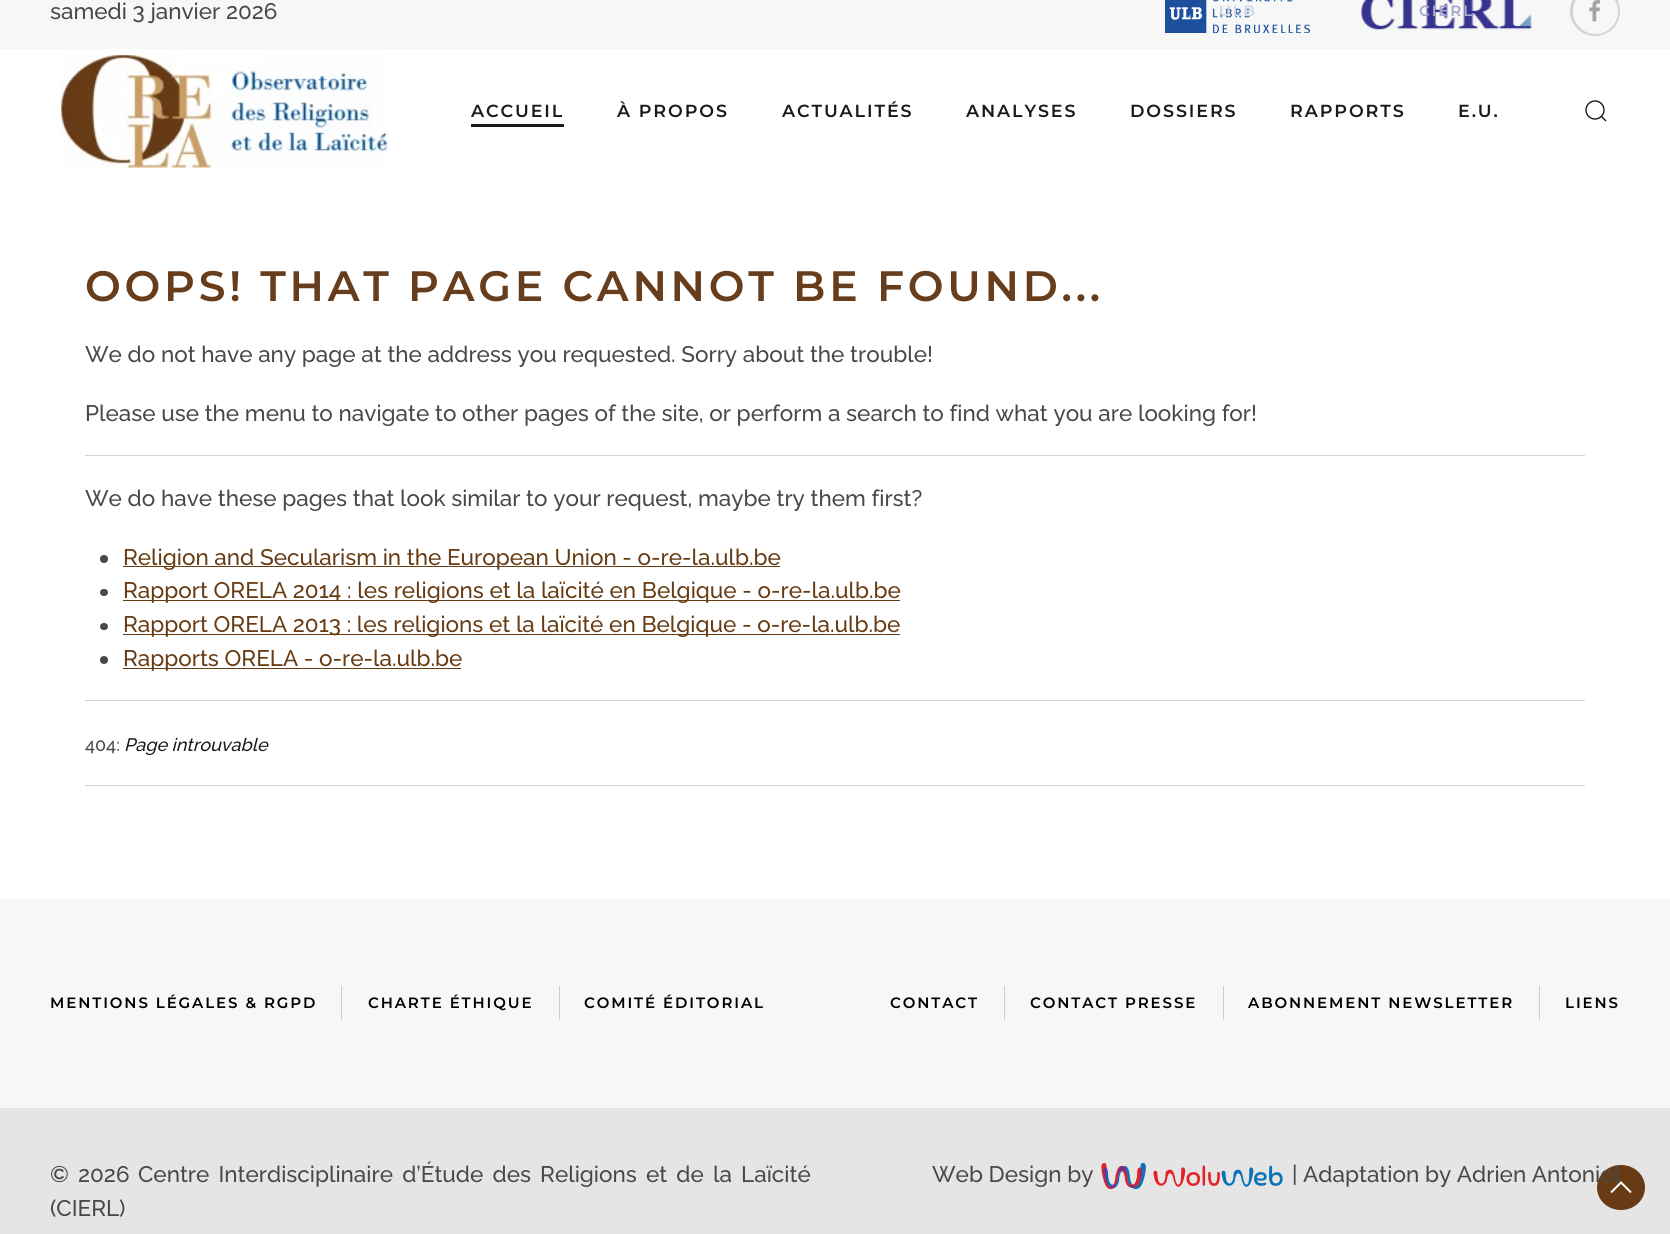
#include <cairo.h>
#include <math.h>
#include <stddef.h>

typedef struct { const char *family; double size; int italic, bold; unsigned color; } style_t;
static cairo_t *ctx;

static void ink(unsigned color) {
    cairo_set_source_rgb(ctx, (color >> 16) / 255.0, (color >> 8 & 255) / 255.0, (color & 255) / 255.0);
}

static void write(double x, double y, const char *s, const style_t *st) {
    cairo_select_font_face(ctx, st->family, st->italic ? CAIRO_FONT_SLANT_ITALIC : CAIRO_FONT_SLANT_NORMAL,
        st->bold ? CAIRO_FONT_WEIGHT_BOLD : CAIRO_FONT_WEIGHT_NORMAL);
    cairo_set_font_size(ctx, st->size);
    ink(st->color);
    cairo_move_to(ctx, x, y);
    cairo_show_text(ctx, s);
}

static void write_spaced(double x, double y, const char *s, double letter, double word) {
    cairo_move_to(ctx, x, y);
    while (*s) {
        char ch[5] = {0};
        int n = 0;
        do ch[n++] = *s++; while ((*s & 0xC0) == 0x80);
        cairo_show_text(ctx, ch);
        cairo_rel_move_to(ctx, letter + word * (*ch == ' '), 0);
    }
}

static void block(double x, double y, double w, double h, unsigned color) {
    ink(color);
    cairo_rectangle(ctx, x, y, w, h);
    cairo_fill(ctx);
}

static void round_path(double x, double y, double w, double h, double r) {
    cairo_new_sub_path(ctx);
    cairo_arc(ctx, x + w - r, y + h - r, r, 0, M_PI / 2);
    cairo_arc(ctx, x + r, y + h - r, r, M_PI / 2, M_PI);
    cairo_arc(ctx, x + r, y + r, r, M_PI, 1.5 * M_PI);
    cairo_arc(ctx, x + w - r, y + r, r, 1.5 * M_PI, 2 * M_PI);
    cairo_close_path(ctx);
}

static void paste(const char *path, double x, double y, double w, double h) {
    cairo_surface_t *image = cairo_image_surface_create_from_png(path);
    cairo_save(ctx);
    cairo_set_source_surface(ctx, image, x, y);
    cairo_rectangle(ctx, x, y, w, h);
    cairo_fill(ctx);
    cairo_restore(ctx);
    cairo_surface_destroy(image);
}

static const style_t s1 = {"Raleway Thin", 22.5, 0, 0, 0x484848};
static const style_t s2 = {"Raleway Thin", 22.5, 0, 0, 0x673b13};
static const style_t s3 = {"Raleway Thin", 18, 0, 0, 0x484848};
static const style_t s4 = {"Raleway Thin", 18, 1, 0, 0x1a1a1a};

int main(void) {
    cairo_surface_t *surface = cairo_image_surface_create(CAIRO_FORMAT_RGB24, 1670, 1234);
    ctx = cairo_create(surface);
    cairo_font_options_t *options = cairo_font_options_create();
    cairo_font_options_set_hint_metrics(options, CAIRO_HINT_METRICS_OFF);
    cairo_font_options_set_hint_style(options, CAIRO_HINT_STYLE_NONE);
    cairo_set_font_options(ctx, options);
    cairo_set_miter_limit(ctx, 4);
    ink(0xffffff);
    cairo_paint(ctx);
    block(0, 0, 1670, 49, 0xf7f7f7);
    write(50, 19, "samedi 3 janvier 2026", &s1);
    paste("pic1.png", 1165, 0, 145, 33);
    cairo_select_font_face(ctx, "Montserrat Thin", CAIRO_FONT_SLANT_NORMAL, CAIRO_FONT_WEIGHT_NORMAL);
    cairo_set_font_size(ctx, 15);
    ink(0xcfd8e6);
    write_spaced(1219, 16, "ULB", 1.9, 0);
    paste("pic2.png", 1361, 0, 171, 30);
    ink(0xa9a8cc);
    write_spaced(1419, 16, "CIERL", 1.9, 0);
    cairo_new_path(ctx);
    cairo_arc(ctx, 1595, 11, 23.5, 0, 2 * M_PI);
    ink(0xd3d3d3);
    cairo_set_line_width(ctx, 3);
    cairo_stroke(ctx);
    ink(0xf7f7f7);
    cairo_arc(ctx, 1595.5, 11.5, 22.5, 0, 2 * M_PI);
    cairo_fill(ctx);
    paste("pic3.png", 1589, 0, 11, 22);
    paste("pic4.png", 61, 55, 327, 113);
    cairo_set_font_size(ctx, 17.5);
    ink(0x1a1a1a);
    write_spaced(471, 117, "ACCUEIL", 1.9, 0);
    block(471, 124, 93, 3, 0x1a1a1a);
    write_spaced(617, 117, "À PROPOS", 1.9, 0);
    write_spaced(782, 117, "ACTUALITÉS", 1.9, 0);
    write_spaced(966, 117, "ANALYSES", 1.9, 0);
    write_spaced(1130, 117, "DOSSIERS", 1.9, 0);
    write_spaced(1290, 117, "RAPPORTS", 1.9, 0);
    write_spaced(1458, 117, "E.U.", 1.9, 0);
    cairo_new_path(ctx);
    cairo_arc(ctx, 1595, 110, 9, 0, 2 * M_PI);
    cairo_set_line_width(ctx, 1.4);
    cairo_stroke(ctx);
    cairo_new_path(ctx);
    cairo_move_to(ctx, 1601, 116);
    cairo_line_to(ctx, 1606, 121);
    cairo_close_path(ctx);
    cairo_stroke(ctx);
    cairo_set_font_size(ctx, 42.5);
    ink(0x673d1b);
    write_spaced(85, 301, "OOPS! THAT PAGE CANNOT BE FOUND...", 3.75, 0);
    write(85, 362, "We do not have any page at the address you requested. Sorry about the trouble!", &s1);
    write(85, 421, "Please use the menu to navigate to other pages of the site, or perform a search to find what you are looking for!", &s1);
    block(85, 455, 1500, 1, 0xd1d1d1);
    write(85, 506, "We do have these pages that look similar to your request, maybe try them first?", &s1);
    cairo_new_path(ctx);
    cairo_arc(ctx, 104, 559, 4, 0, 2 * M_PI);
    cairo_fill(ctx);
    block(123, 566, 657, 1, 0x673b13);
    write(123, 565, "Religion and Secularism in the European Union - o-re-la.ulb.be", &s2);
    ink(0x484848);
    round_path(100, 589, 8, 7, 3.5);
    cairo_fill(ctx);
    block(123, 600, 777, 1, 0x673b13);
    write(123, 598, "Rapport ORELA 2014 : les religions et la laïcité en Belgique - o-re-la.ulb.be", &s2);
    ink(0x484848);
    round_path(100, 623, 8, 7, 3.5);
    cairo_fill(ctx);
    block(123, 634, 777, 1, 0x673b13);
    write(123, 632, "Rapport ORELA 2013 : les religions et la laïcité en Belgique - o-re-la.ulb.be", &s2);
    ink(0x484848);
    cairo_new_path(ctx);
    cairo_arc(ctx, 104, 660, 4, 0, 2 * M_PI);
    cairo_fill(ctx);
    block(123, 668, 338, 1, 0x673b13);
    write(123, 666, "Rapports ORELA - o-re-la.ulb.be", &s2);
    block(85, 700, 1500, 1, 0xd1d1d1);
    write(85, 751, "404:", &s3);
    write(124, 751, "Page introuvable", &s4);
    block(85, 785, 1500, 1, 0xd1d1d1);
    block(0, 899, 1670, 209, 0xf7f7f7);
    cairo_select_font_face(ctx, "Montserrat Thin", CAIRO_FONT_SLANT_NORMAL, CAIRO_FONT_WEIGHT_NORMAL);
    cairo_set_font_size(ctx, 15);
    ink(0x000000);
    write_spaced(50, 1008, "MENTIONS LÉGALES & RGPD", 1.9, 0);
    block(341, 986, 1, 34, 0xcbcbcb);
    ink(0x000000);
    write_spaced(368, 1008, "CHARTE ÉTHIQUE", 1.9, 0);
    block(559, 986, 1, 34, 0xcbcbcb);
    ink(0x000000);
    write_spaced(584, 1008, "COMITÉ ÉDITORIAL", 1.9, 0);
    write_spaced(890, 1008, "CONTACT", 1.9, 0);
    block(1004, 986, 1, 34, 0xcbcbcb);
    ink(0x000000);
    write_spaced(1030, 1008, "CONTACT PRESSE", 1.9, 0);
    block(1223, 986, 1, 34, 0xcbcbcb);
    ink(0x000000);
    write_spaced(1248, 1008, "ABONNEMENT NEWSLETTER", 1.9, 0);
    block(1539, 986, 1, 34, 0xcbcbcb);
    ink(0x000000);
    write_spaced(1565, 1008, "LIENS", 1.9, 0);
    block(0, 1108, 1670, 126, 0xe5e5e5);
    write(50, 1182, "©", &s1);
    write(78, 1182, "2026", &s1);
    write_spaced(138, 1182, "Centre Interdisciplinaire d’Étude des Religions et de la Laïcité", 0, 3.5);
    write(50, 1216, "(CIERL)", &s1);
    ink(0x693b14);
    cairo_new_path(ctx);
    cairo_move_to(ctx, 1621, 1165);
    cairo_curve_to(ctx, 1634.5, 1165, 1645, 1175, 1645, 1187.5);
    cairo_curve_to(ctx, 1645, 1200, 1634.5, 1210, 1621, 1210);
    cairo_curve_to(ctx, 1607.5, 1210, 1597, 1200, 1597, 1187.5);
    cairo_curve_to(ctx, 1597, 1175, 1607.5, 1165, 1621, 1165);
    cairo_close_path(ctx);
    cairo_fill(ctx);
    cairo_new_path(ctx);
    cairo_move_to(ctx, 1611, 1192.5);
    cairo_line_to(ctx, 1621, 1182.5);
    cairo_line_to(ctx, 1631, 1192.5);
    ink(0xffffff);
    cairo_set_line_width(ctx, 2);
    cairo_stroke(ctx);
    write(932, 1182, "Web Design by", &s1);
    paste("pic5.png", 1101, 1162, 182, 28);
    write(1292, 1182, "| Adaptation by Adrien Antoniol", &s1);
    cairo_surface_write_to_png(surface, "screenshot.png");
    cairo_font_options_destroy(options);
    cairo_destroy(ctx);
    cairo_surface_destroy(surface);
    return 0;
}
